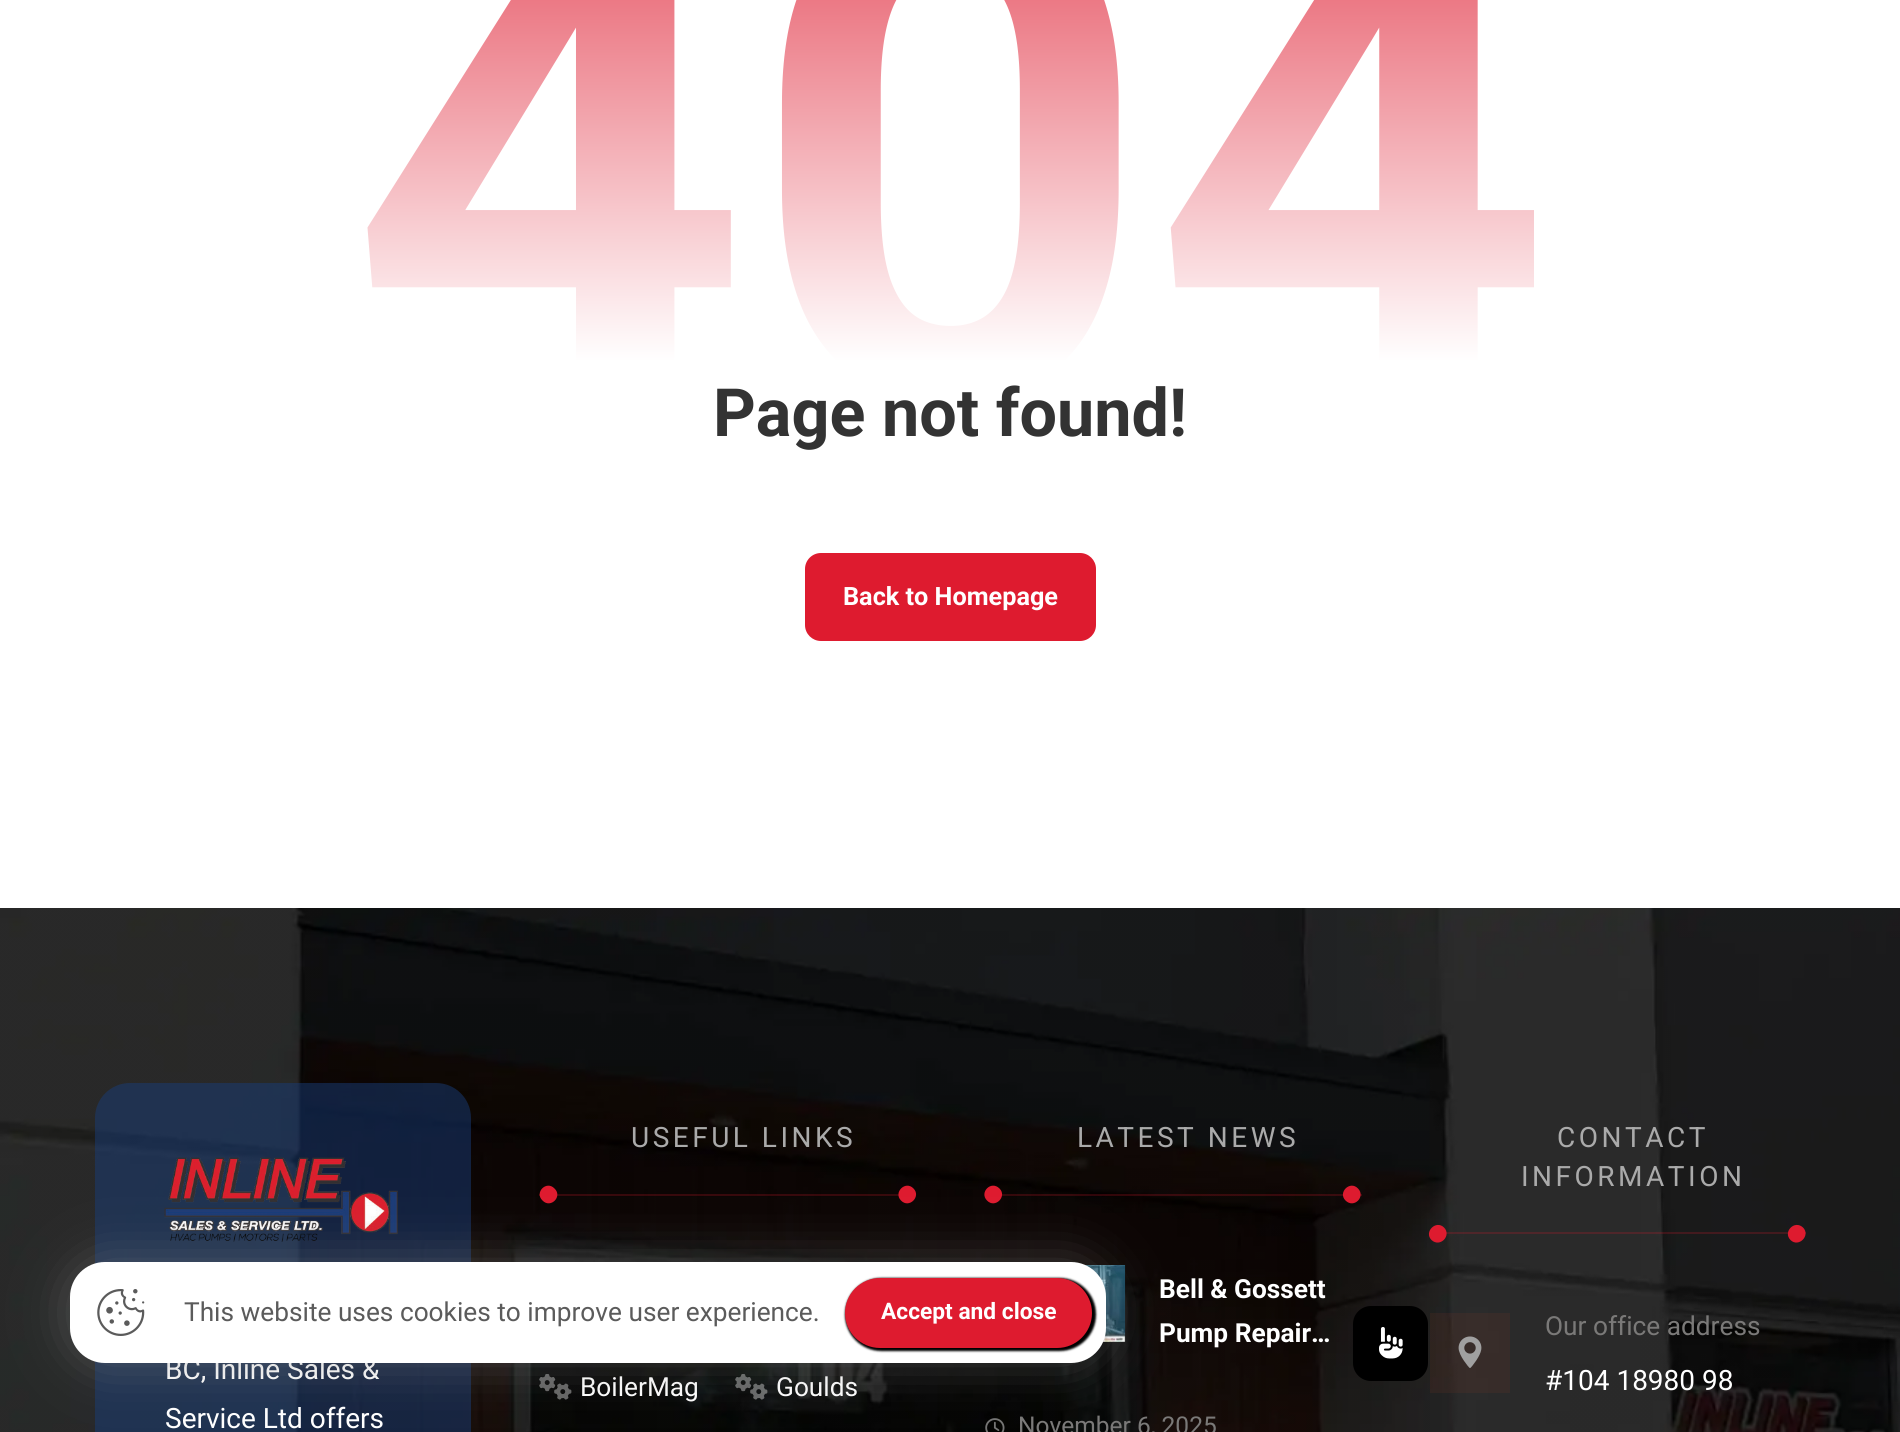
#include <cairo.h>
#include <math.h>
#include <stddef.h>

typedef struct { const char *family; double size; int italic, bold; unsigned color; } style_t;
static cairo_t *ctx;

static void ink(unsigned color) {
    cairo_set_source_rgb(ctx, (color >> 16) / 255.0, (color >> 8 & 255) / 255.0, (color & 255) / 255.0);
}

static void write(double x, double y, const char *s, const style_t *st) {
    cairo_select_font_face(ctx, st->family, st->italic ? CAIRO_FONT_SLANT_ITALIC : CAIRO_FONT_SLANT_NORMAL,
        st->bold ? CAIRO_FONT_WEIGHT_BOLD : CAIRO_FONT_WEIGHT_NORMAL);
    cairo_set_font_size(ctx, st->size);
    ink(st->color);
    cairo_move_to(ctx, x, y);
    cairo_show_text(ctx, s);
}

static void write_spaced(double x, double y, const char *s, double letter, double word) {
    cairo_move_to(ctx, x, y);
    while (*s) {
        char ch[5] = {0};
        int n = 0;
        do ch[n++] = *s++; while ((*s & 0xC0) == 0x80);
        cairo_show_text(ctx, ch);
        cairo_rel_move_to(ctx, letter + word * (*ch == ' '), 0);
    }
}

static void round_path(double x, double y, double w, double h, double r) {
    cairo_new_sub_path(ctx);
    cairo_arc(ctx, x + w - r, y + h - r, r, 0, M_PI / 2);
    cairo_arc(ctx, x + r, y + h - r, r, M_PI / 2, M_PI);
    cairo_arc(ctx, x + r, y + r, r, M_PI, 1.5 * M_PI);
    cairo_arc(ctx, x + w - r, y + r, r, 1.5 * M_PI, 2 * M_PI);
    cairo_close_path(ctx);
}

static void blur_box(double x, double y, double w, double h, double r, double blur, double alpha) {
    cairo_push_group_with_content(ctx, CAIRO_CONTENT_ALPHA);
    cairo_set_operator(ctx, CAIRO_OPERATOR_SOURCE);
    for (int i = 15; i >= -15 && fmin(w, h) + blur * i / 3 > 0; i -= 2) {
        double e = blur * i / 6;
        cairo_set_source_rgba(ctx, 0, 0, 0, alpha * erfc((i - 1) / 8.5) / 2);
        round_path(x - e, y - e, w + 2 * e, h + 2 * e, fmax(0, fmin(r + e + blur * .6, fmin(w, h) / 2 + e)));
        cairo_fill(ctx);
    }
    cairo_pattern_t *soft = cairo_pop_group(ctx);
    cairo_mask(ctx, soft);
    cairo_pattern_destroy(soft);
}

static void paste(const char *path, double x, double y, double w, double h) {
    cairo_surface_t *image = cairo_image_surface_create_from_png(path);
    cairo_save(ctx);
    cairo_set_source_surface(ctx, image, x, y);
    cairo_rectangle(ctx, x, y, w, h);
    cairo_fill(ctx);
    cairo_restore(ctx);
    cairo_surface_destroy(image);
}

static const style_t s1 = {"Roboto", 66.5, 0, 1, 0x333333};
static const style_t s2 = {"Roboto", 25.25, 0, 1, 0xffffff};
static const style_t s3 = {"Roboto", 28, 0, 0, 0xffffff};
static const style_t s4 = {"Roboto", 26.25, 0, 0, 0xffffff};
static const style_t s5 = {"Roboto", 26.25, 0, 1, 0xffffff};
static const style_t s6 = {"Roboto", 24.5, 0, 0, 0x7a7978};
static const style_t s7 = {"Roboto", 26.25, 0, 0, 0x7a7978};
static const style_t s8 = {"Roboto", 26.25, 0, 0, 0x5b5b5b};
static const style_t s9 = {"Roboto", 22.75, 0, 1, 0xffffff};

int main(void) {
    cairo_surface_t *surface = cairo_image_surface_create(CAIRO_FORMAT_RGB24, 1900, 1432);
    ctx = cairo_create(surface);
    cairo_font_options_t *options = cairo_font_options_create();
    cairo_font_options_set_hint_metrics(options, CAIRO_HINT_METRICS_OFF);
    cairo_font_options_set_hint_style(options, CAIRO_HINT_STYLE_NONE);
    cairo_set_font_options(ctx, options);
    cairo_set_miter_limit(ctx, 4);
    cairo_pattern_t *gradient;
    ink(0xffffff);
    cairo_paint(ctx);
    cairo_select_font_face(ctx, "Roboto", CAIRO_FONT_SLANT_NORMAL, CAIRO_FONT_WEIGHT_BOLD);
    cairo_set_font_size(ctx, 700);
    gradient = cairo_pattern_create_linear(950, -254, 950, 567);
    cairo_pattern_add_color_stop_rgba(gradient, 0, 0.871, 0.106, 0.184, 1);
    cairo_pattern_add_color_stop_rgba(gradient, 0.75, 1, 1, 1, 1);
    cairo_set_source(ctx, gradient);
    cairo_pattern_destroy(gradient);
    cairo_move_to(ctx, 348, 396);
    cairo_show_text(ctx, "404");
    write(713, 436, "Page not found!", &s1);
    ink(0xde1b2f);
    round_path(805, 553, 291, 88, 16);
    cairo_fill(ctx);
    write(843, 605, "Back to Homepage", &s2);
    paste("pic1.png", 0, 908, 1900, 524);
    cairo_set_source_rgba(ctx, 0.098, 0.239, 0.471, 0.5);
    round_path(95, 1083, 376, 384, 35);
    cairo_fill(ctx);
    paste("pic2.png", 164, 1157, 234, 85);
    write(165, 1379, "BC, Inline Sales &", &s3);
    write(165, 1428, "Service Ltd offers", &s3);
    cairo_set_source_rgba(ctx, 0.871, 0.106, 0.184, 0.21);
    cairo_rectangle(ctx, 539, 1194, 360, 2);
    cairo_fill(ctx);
    ink(0xaaaaaa);
    write_spaced(631, 1147, "USEFUL LINKS", 3.5, 0);
    ink(0xde1b2f);
    cairo_new_path(ctx);
    cairo_move_to(ctx, 554.5, 1188.5);
    cairo_curve_to(ctx, 563, 1196.5, 550.5, 1209, 542.5, 1200.5);
    cairo_curve_to(ctx, 534, 1192.5, 546.5, 1180, 554.5, 1188.5);
    cairo_close_path(ctx);
    cairo_fill(ctx);
    cairo_new_path(ctx);
    cairo_move_to(ctx, 913.5, 1188.5);
    cairo_curve_to(ctx, 921.5, 1196.5, 909, 1209, 901, 1200.5);
    cairo_curve_to(ctx, 893, 1192.5, 905.5, 1180, 913.5, 1188.5);
    cairo_close_path(ctx);
    cairo_fill(ctx);
    paste("pic3.png", 539, 1374, 33, 26);
    write(580, 1396, "BoilerMag", &s4);
    paste("pic4.png", 735, 1374, 33, 26);
    write(776, 1396, "Goulds", &s4);
    cairo_set_source_rgba(ctx, 0.871, 0.106, 0.184, 0.21);
    cairo_rectangle(ctx, 1001, 1194, 361, 2);
    cairo_fill(ctx);
    cairo_set_font_size(ctx, 28);
    ink(0xaaaaaa);
    write_spaced(1077, 1147, "LATEST NEWS", 3.5, 0);
    ink(0xde1b2f);
    cairo_new_path(ctx);
    cairo_move_to(ctx, 999.5, 1188.5);
    cairo_curve_to(ctx, 1007.5, 1196.5, 995, 1209, 987, 1200.5);
    cairo_curve_to(ctx, 979, 1192.5, 991, 1180, 999.5, 1188.5);
    cairo_close_path(ctx);
    cairo_fill(ctx);
    cairo_new_path(ctx);
    cairo_move_to(ctx, 1358, 1188.5);
    cairo_curve_to(ctx, 1366, 1196.5, 1354, 1209, 1345.5, 1200.5);
    cairo_curve_to(ctx, 1337.5, 1192.5, 1350, 1180, 1358, 1188.5);
    cairo_close_path(ctx);
    cairo_fill(ctx);
    paste("pic5.png", 1085, 1265, 41, 77);
    write(1159, 1298, "Bell & Gossett", &s5);
    write(1159, 1342, "Pump Repair…", &s5);
    paste("pic6.png", 985, 1418, 20, 14);
    write(1018, 1434, "November 6, 2025", &s6);
    cairo_set_source_rgba(ctx, 0.871, 0.106, 0.184, 0.21);
    cairo_rectangle(ctx, 1446, 1232, 360, 2);
    cairo_fill(ctx);
    cairo_set_font_size(ctx, 28);
    ink(0xaaaaaa);
    write_spaced(1557, 1147, "CONTACT", 3.5, 0);
    write_spaced(1521, 1186, "INFORMATION", 3.5, 0);
    ink(0xde1b2f);
    cairo_new_path(ctx);
    cairo_move_to(ctx, 1444, 1227.5);
    cairo_curve_to(ctx, 1452, 1235.5, 1440, 1248, 1431.5, 1240);
    cairo_curve_to(ctx, 1423.5, 1232, 1436, 1219.5, 1444, 1227.5);
    cairo_close_path(ctx);
    cairo_fill(ctx);
    cairo_new_path(ctx);
    cairo_move_to(ctx, 1803, 1227.5);
    cairo_curve_to(ctx, 1811, 1235.5, 1798.5, 1248, 1790.5, 1240);
    cairo_curve_to(ctx, 1782.5, 1232, 1794.5, 1219.5, 1803, 1227.5);
    cairo_close_path(ctx);
    cairo_fill(ctx);
    cairo_set_source_rgba(ctx, 0.945, 0.333, 0.141, 0.07);
    cairo_rectangle(ctx, 1430, 1313, 80, 80);
    cairo_fill(ctx);
    paste("pic7.png", 1458, 1336, 24, 32);
    write(1545, 1335, "Our office address", &s7);
    write(1545, 1390, "#104 18980 98", &s3);
    ink(0x8a8a8a);
    blur_box(70, 1262, 1036, 101, 35, 26, 0.44);
    ink(0xffffff);
    round_path(70, 1262, 1036, 101, 35);
    cairo_fill(ctx);
    paste("pic8.png", 97, 1289, 48, 47);
    write(184, 1321, "This website uses cookies to improve user experience.", &s8);
    ink(0x000000);
    blur_box(845, 1278, 251, 73, 36.5, 1, 1);
    ink(0xde1b2f);
    round_path(845, 1278, 247, 70, 35);
    cairo_fill(ctx);
    write(881, 1319, "Accept and close", &s9);
    ink(0x000000);
    round_path(1353, 1306, 75, 75, 18);
    cairo_fill(ctx);
    paste("pic9.png", 1379, 1327, 24, 32);
    cairo_surface_write_to_png(surface, "screenshot.png");
    cairo_font_options_destroy(options);
    cairo_destroy(ctx);
    cairo_surface_destroy(surface);
    return 0;
}
